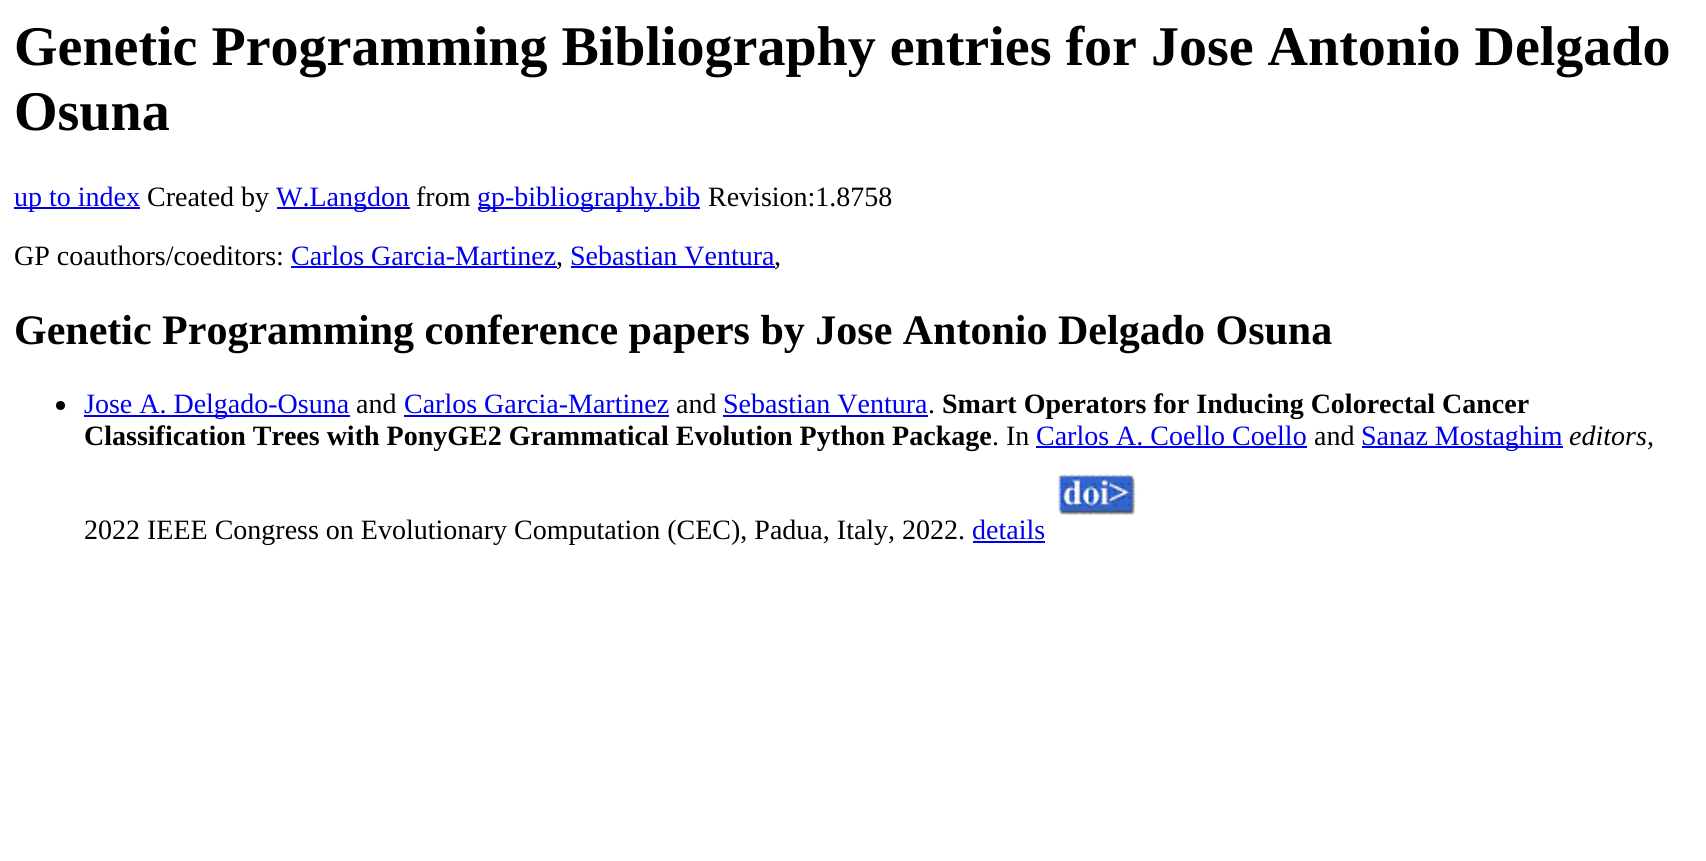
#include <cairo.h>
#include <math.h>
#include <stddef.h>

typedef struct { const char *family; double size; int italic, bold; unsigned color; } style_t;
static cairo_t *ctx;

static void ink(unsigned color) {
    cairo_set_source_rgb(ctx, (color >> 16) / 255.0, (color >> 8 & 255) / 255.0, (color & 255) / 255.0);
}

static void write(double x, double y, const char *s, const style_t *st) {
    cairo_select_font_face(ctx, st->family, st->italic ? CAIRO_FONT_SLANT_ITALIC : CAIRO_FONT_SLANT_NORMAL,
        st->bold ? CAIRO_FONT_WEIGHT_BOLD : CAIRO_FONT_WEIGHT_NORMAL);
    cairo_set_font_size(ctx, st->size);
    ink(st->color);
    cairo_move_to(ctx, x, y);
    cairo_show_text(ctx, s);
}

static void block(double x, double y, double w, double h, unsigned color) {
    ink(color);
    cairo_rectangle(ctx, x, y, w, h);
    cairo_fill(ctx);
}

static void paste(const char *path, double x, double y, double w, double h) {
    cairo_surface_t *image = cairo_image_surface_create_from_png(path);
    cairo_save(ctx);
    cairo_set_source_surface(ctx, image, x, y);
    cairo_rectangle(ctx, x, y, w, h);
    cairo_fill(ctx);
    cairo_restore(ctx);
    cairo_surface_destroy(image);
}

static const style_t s1 = {"Liberation Serif", 56, 0, 1, 0x000000};
static const style_t s2 = {"Liberation Serif", 28, 0, 0, 0x0000ee};
static const style_t s3 = {"Liberation Serif", 28, 0, 0, 0x000000};
static const style_t s4 = {"Liberation Serif", 42, 0, 1, 0x000000};
static const style_t s5 = {"Liberation Serif", 28, 0, 1, 0x000000};
static const style_t s6 = {"Liberation Serif", 28, 1, 0, 0x000000};

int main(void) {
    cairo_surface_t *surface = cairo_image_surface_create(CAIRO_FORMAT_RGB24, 1706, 861);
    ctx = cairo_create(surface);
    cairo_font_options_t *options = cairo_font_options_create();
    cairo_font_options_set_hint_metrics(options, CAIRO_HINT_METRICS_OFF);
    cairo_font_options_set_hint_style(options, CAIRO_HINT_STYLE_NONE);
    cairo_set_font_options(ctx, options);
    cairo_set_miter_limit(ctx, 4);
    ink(0xffffff);
    cairo_paint(ctx);
    write(14, 65, "Genetic Programming Bibliography entries for Jose Antonio Delgado", &s1);
    write(14, 130, "Osuna", &s1);
    block(14, 207, 126, 2, 0x0000ee);
    write(14, 206, "up to index", &s2);
    write(147, 206, "Created by", &s3);
    block(277, 207, 133, 2, 0x0000ee);
    write(276, 206, "W.Langdon", &s2);
    write(416, 206, "from", &s3);
    block(478, 207, 222, 2, 0x0000ee);
    write(477, 206, "gp-bibliography.bib", &s2);
    write(708, 206, "Revision:1.8758", &s3);
    write(14, 265, "GP coauthors/coeditors:", &s3);
    write(291, 265, "Carlos Garcia-Martinez", &s2);
    block(291, 266, 266, 2, 0x0000ee);
    write(556, 265, ",", &s3);
    write(570, 265, "Sebastian Ventura", &s2);
    block(571, 266, 204, 2, 0x0000ee);
    write(774, 265, ",", &s3);
    write(14, 344, "Genetic Programming conference papers by Jose Antonio Delgado Osuna", &s4);
    cairo_new_path(ctx);
    cairo_arc(ctx, 60.5, 405.5, 4.5, 0, 2 * M_PI);
    cairo_fill(ctx);
    block(84, 415, 266, 2, 0x0000ee);
    write(84, 413, "Jose A. Delgado-Osuna", &s2);
    write(356, 413, "and", &s3);
    write(404, 413, "Carlos Garcia-Martinez", &s2);
    block(404, 415, 265, 2, 0x0000ee);
    write(676, 413, "and", &s3);
    write(723, 413, "Sebastian Ventura", &s2);
    block(723, 415, 205, 2, 0x0000ee);
    write(942, 413, "Smart Operators for Inducing Colorectal Cancer", &s5);
    write(928, 413, ".", &s3);
    write(84, 445, "Classification Trees with PonyGE2 Grammatical Evolution Python Package", &s5);
    write(992, 445, ". In", &s3);
    write(1036, 445, "Carlos A. Coello Coello", &s2);
    block(1036, 446, 271, 2, 0x0000ee);
    write(1314, 445, "and", &s3);
    block(1362, 446, 201, 2, 0x0000ee);
    write(1361, 445, "Sanaz Mostaghim", &s2);
    write(1569, 445, "editors", &s6);
    write(1647, 445, ",", &s3);
    paste("pic1.png", 1058, 474, 79, 41);
    write(84, 539, "2022 IEEE Congress on Evolutionary Computation (CEC), Padua, Italy, 2022.", &s3);
    write(972, 539, "details", &s2);
    block(973, 541, 72, 2, 0x0000ee);
    cairo_surface_write_to_png(surface, "screenshot.png");
    cairo_font_options_destroy(options);
    cairo_destroy(ctx);
    cairo_surface_destroy(surface);
    return 0;
}
